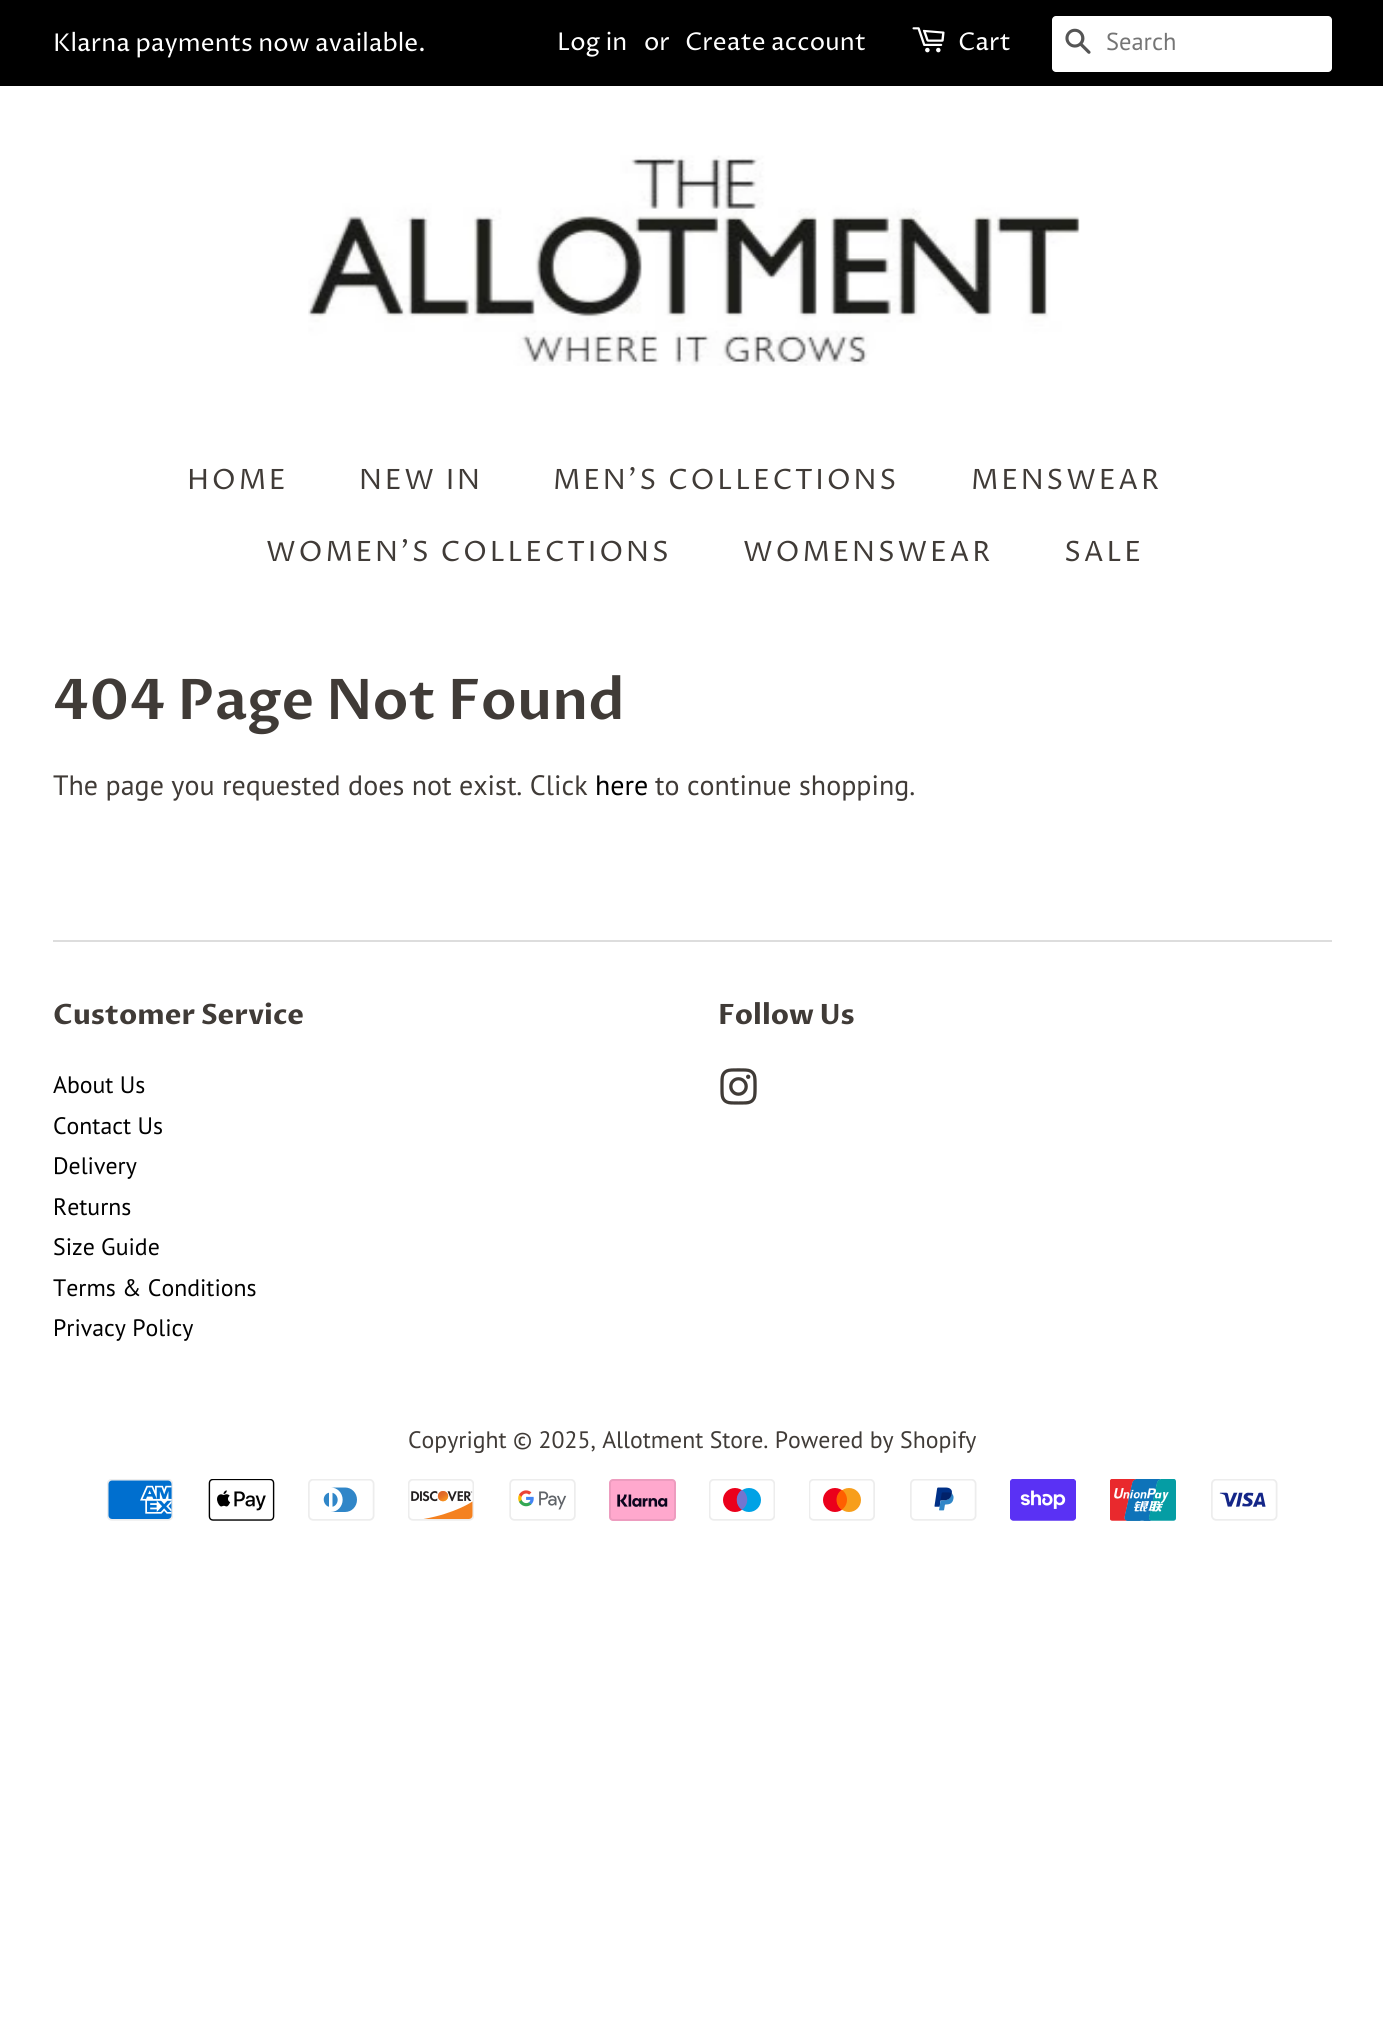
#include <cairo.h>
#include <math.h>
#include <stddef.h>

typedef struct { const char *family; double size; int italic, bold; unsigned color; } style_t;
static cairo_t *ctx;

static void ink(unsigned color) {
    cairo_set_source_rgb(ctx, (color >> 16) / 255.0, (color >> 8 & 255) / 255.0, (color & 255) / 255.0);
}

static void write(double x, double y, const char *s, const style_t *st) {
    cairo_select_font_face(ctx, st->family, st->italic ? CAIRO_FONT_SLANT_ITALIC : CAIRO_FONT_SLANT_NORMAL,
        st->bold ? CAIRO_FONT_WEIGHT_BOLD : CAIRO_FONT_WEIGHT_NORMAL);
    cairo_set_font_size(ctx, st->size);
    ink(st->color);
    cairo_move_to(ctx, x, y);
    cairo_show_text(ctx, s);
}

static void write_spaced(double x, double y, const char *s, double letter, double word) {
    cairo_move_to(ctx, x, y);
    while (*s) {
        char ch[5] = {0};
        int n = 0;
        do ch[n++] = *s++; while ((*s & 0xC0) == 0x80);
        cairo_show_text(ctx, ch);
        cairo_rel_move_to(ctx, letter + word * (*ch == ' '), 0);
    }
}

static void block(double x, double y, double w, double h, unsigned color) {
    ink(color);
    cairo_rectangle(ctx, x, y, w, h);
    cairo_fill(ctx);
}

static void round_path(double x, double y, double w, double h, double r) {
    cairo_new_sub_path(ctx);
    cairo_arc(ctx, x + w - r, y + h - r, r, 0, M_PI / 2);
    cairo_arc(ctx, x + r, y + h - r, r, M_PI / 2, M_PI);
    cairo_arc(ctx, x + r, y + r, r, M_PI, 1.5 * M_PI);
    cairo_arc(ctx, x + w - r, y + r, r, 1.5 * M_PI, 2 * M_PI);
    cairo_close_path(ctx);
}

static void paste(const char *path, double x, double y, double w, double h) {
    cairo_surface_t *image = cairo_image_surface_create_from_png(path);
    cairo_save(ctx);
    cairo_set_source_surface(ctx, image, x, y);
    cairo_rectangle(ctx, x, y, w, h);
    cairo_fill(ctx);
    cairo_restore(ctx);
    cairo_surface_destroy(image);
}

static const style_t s1 = {"Proza Libre", 24.5, 0, 0, 0xffffff};
static const style_t s2 = {"PT Sans", 24.5, 0, 0, 0x757575};
static const style_t s3 = {"Proza Libre SemiBold", 56, 0, 0, 0x403b37};
static const style_t s4 = {"PT Sans", 28, 0, 0, 0x403b37};
static const style_t s5 = {"PT Sans", 28, 0, 0, 0x000000};
static const style_t s6 = {"Proza Libre", 28, 0, 1, 0x403b37};
static const style_t s7 = {"PT Sans", 23.8, 0, 0, 0x000000};
static const style_t s8 = {"PT Sans", 23.8, 0, 0, 0x403b37};

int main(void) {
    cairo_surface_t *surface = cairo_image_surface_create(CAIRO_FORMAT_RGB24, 1383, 2025);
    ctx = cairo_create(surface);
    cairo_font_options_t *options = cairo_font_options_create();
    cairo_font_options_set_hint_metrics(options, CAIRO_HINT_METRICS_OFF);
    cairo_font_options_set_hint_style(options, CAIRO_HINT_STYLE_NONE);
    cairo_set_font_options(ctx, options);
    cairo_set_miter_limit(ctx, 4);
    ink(0xffffff);
    cairo_paint(ctx);
    block(0, 0, 1383, 86, 0x000000);
    write(53, 51, "Klarna payments now available.", &s1);
    write(557, 50, "Log in", &s1);
    write(644, 50, "or", &s1);
    write(685, 50, "Create account", &s1);
    paste("pic1.png", 912, 27, 33, 26);
    write(958, 50, "Cart", &s1);
    round_path(1052, 16, 280, 56, 4);
    cairo_fill(ctx);
    paste("pic2.png", 1065, 28, 26, 26);
    write(1106, 50, "Search", &s2);
    paste("pic3.png", 308, 155, 772, 211);
    cairo_select_font_face(ctx, "Proza Libre", CAIRO_FONT_SLANT_NORMAL, CAIRO_FONT_WEIGHT_NORMAL);
    cairo_set_font_size(ctx, 28);
    ink(0x403b37);
    write_spaced(187, 489, "HOME", 2.75, 0);
    write_spaced(359, 489, "NEW IN", 2.75, 0);
    write_spaced(553, 489, "MEN'S COLLECTIONS", 2.75, 0);
    write_spaced(971, 489, "MENSWEAR", 2.75, 0);
    write_spaced(266, 561, "WOMEN'S COLLECTIONS", 2.75, 0);
    write_spaced(743, 561, "WOMENSWEAR", 2.75, 0);
    write_spaced(1064, 561, "SALE", 2.75, 0);
    write(53, 719, "404 Page Not Found", &s3);
    write(53, 795, "The page you requested does not exist. Click", &s4);
    write(595, 795, "here", &s5);
    write(655, 795, "to continue shopping.", &s4);
    block(53, 940, 1279, 2, 0xdddddd);
    write(53, 1024, "Customer Service", &s6);
    write(53, 1093, "About Us", &s7);
    write(53, 1134, "Contact Us", &s7);
    write(53, 1174, "Delivery", &s7);
    write(53, 1215, "Returns", &s7);
    write(53, 1255, "Size Guide", &s7);
    write(53, 1296, "Terms & Conditions", &s7);
    write(53, 1336, "Privacy Policy", &s7);
    write(718, 1024, "Follow Us", &s6);
    paste("pic4.png", 720, 1068, 37, 37);
    write(408, 1448, "Copyright © 2025, Allotment Store. Powered by Shopify", &s8);
    paste("pic5.png", 107, 1479, 66, 42);
    paste("pic6.png", 208, 1479, 67, 42);
    paste("pic7.png", 308, 1479, 67, 42);
    paste("pic8.png", 408, 1479, 66, 42);
    paste("pic9.png", 509, 1479, 67, 42);
    paste("pic10.png", 609, 1479, 67, 42);
    paste("pic11.png", 709, 1479, 66, 42);
    paste("pic12.png", 809, 1479, 66, 42);
    paste("pic13.png", 910, 1479, 67, 42);
    paste("pic14.png", 1010, 1479, 66, 42);
    paste("pic15.png", 1110, 1479, 66, 42);
    paste("pic16.png", 1211, 1479, 67, 42);
    cairo_surface_write_to_png(surface, "screenshot.png");
    cairo_font_options_destroy(options);
    cairo_destroy(ctx);
    cairo_surface_destroy(surface);
    return 0;
}
